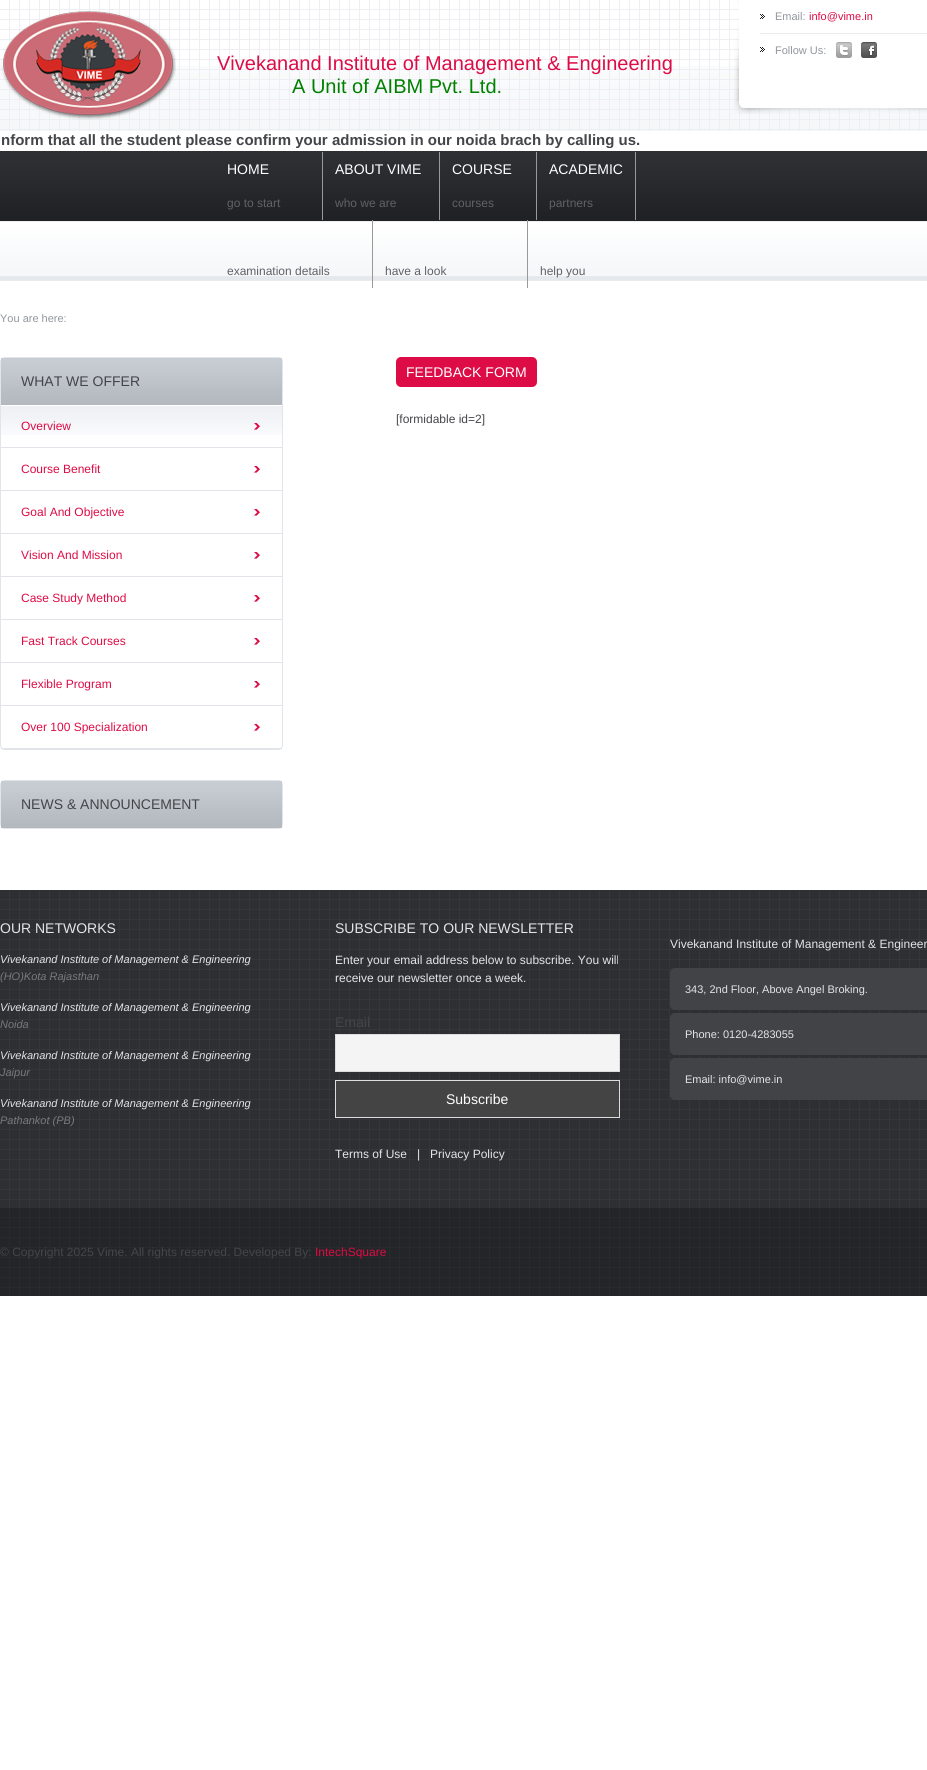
#include <cairo.h>
#include <math.h>
#include <stddef.h>

typedef struct { const char *family; double size; int italic, bold; unsigned color; } style_t;
static cairo_t *ctx;

static void ink(unsigned color) {
    cairo_set_source_rgb(ctx, (color >> 16) / 255.0, (color >> 8 & 255) / 255.0, (color & 255) / 255.0);
}

static void write(double x, double y, const char *s, const style_t *st) {
    cairo_select_font_face(ctx, st->family, st->italic ? CAIRO_FONT_SLANT_ITALIC : CAIRO_FONT_SLANT_NORMAL,
        st->bold ? CAIRO_FONT_WEIGHT_BOLD : CAIRO_FONT_WEIGHT_NORMAL);
    cairo_set_font_size(ctx, st->size);
    ink(st->color);
    cairo_move_to(ctx, x, y);
    cairo_show_text(ctx, s);
}

static void block(double x, double y, double w, double h, unsigned color) {
    ink(color);
    cairo_rectangle(ctx, x, y, w, h);
    cairo_fill(ctx);
}

static void round_path(double x, double y, double w, double h, double r) {
    cairo_new_sub_path(ctx);
    cairo_arc(ctx, x + w - r, y + h - r, r, 0, M_PI / 2);
    cairo_arc(ctx, x + r, y + h - r, r, M_PI / 2, M_PI);
    cairo_arc(ctx, x + r, y + r, r, M_PI, 1.5 * M_PI);
    cairo_arc(ctx, x + w - r, y + r, r, 1.5 * M_PI, 2 * M_PI);
    cairo_close_path(ctx);
}

static void paste(const char *path, double x, double y, double w, double h) {
    cairo_surface_t *image = cairo_image_surface_create_from_png(path);
    cairo_save(ctx);
    cairo_set_source_surface(ctx, image, x, y);
    cairo_rectangle(ctx, x, y, w, h);
    cairo_fill(ctx);
    cairo_restore(ctx);
    cairo_surface_destroy(image);
}

static const style_t s1 = {"Liberation Sans", 11, 0, 0, 0x92979d};
static const style_t s2 = {"Liberation Sans", 11, 0, 0, 0xdd0c46};
static const style_t s3 = {"Liberation Sans", 20, 0, 0, 0xdd0c46};
static const style_t s4 = {"Liberation Sans", 20, 0, 0, 0x008000};
static const style_t s5 = {"Liberation Sans", 15, 0, 1, 0x444549};
static const style_t s6 = {"Liberation Sans", 14, 0, 0, 0xffffff};
static const style_t s7 = {"Liberation Sans", 12, 0, 0, 0x606168};
static const style_t s8 = {"Liberation Sans", 14, 0, 0, 0x444549};
static const style_t s9 = {"Liberation Sans", 12, 0, 0, 0xdd0c46};
static const style_t s10 = {"Liberation Sans", 12, 0, 0, 0x444549};
static const style_t s11 = {"Liberation Sans", 14, 0, 0, 0xe1e5e9};
static const style_t s12 = {"Liberation Sans", 11, 1, 0, 0xe1e5e9};
static const style_t s13 = {"Liberation Sans", 11, 1, 0, 0x77797c};
static const style_t s14 = {"Liberation Sans", 12, 0, 0, 0xe1e5e9};
static const style_t s15 = {"Liberation Sans", 11, 0, 0, 0xe1e5e9};

int main(void) {
    cairo_surface_t *surface = cairo_image_surface_create(CAIRO_FORMAT_RGB24, 927, 1770);
    ctx = cairo_create(surface);
    cairo_font_options_t *options = cairo_font_options_create();
    cairo_font_options_set_hint_metrics(options, CAIRO_HINT_METRICS_OFF);
    cairo_font_options_set_hint_style(options, CAIRO_HINT_STYLE_NONE);
    cairo_set_font_options(ctx, options);
    cairo_set_miter_limit(ctx, 4);
    ink(0xffffff);
    cairo_paint(ctx);
    paste("pic1.png", 0, 66, 927, 65);
    paste("pic2.png", 0, 0, 927, 131);
    paste("pic3.png", 0, 11, 176, 109);
    paste("pic4.png", 734, 0, 193, 114);
    block(760, 33, 167, 1, 0xebebed);
    paste("pic5.png", 760, 14, 5, 5);
    write(775, 20, "Email:", &s1);
    write(809, 20, "info@vime.in", &s2);
    paste("pic5.png", 760, 47, 5, 5);
    write(775, 54, "Follow Us:", &s1);
    paste("pic6.png", 836, 42, 16, 16);
    paste("pic7.png", 861, 42, 16, 16);
    write(217, 70, "Vivekanand Institute of Management & Engineering", &s3);
    write(292, 93, "A Unit of AIBM Pvt. Ltd.", &s4);
    cairo_save(ctx);
    cairo_rectangle(ctx, 0, 131, 927, 17);
    cairo_clip(ctx);
    write(1, 145, "nform that all the student please confirm your admission in our noida brach by calling us.", &s5);
    cairo_restore(ctx);
    paste("pic8.png", 0, 151, 927, 70);
    block(322, 152, 1, 68, 0x999999);
    write(227, 174, "HOME", &s6);
    write(227, 207, "go to start", &s7);
    block(439, 152, 1, 68, 0x999999);
    write(335, 174, "ABOUT VIME", &s6);
    write(335, 207, "who we are", &s7);
    block(536, 152, 1, 68, 0x999999);
    write(452, 174, "COURSE", &s6);
    write(452, 207, "courses", &s7);
    block(635, 152, 1, 68, 0x999999);
    write(549, 174, "ACADEMIC", &s6);
    write(549, 207, "partners", &s7);
    paste("pic9.png", 0, 221, 927, 60);
    block(372, 220, 1, 68, 0x999999);
    write(227, 275, "examination details", &s7);
    block(527, 220, 1, 68, 0x999999);
    write(385, 275, "have a look", &s7);
    write(540, 275, "help you", &s7);
    write(0, 322, "You are here:", &s1);
    round_path(0.5, 357.5, 282, 392, 4.5);
    ink(0xe1e5e9);
    cairo_set_line_width(ctx, 1);
    cairo_stroke(ctx);
    paste("pic10.png", 1, 358, 281, 47);
    write(21, 386, "WHAT WE OFFER", &s8);
    paste("pic11.png", 1, 406, 281, 29);
    paste("pic12.png", 254, 423, 6, 7);
    block(1, 447, 281, 1, 0xe1e5e9);
    write(21, 430, "Overview", &s9);
    paste("pic13.png", 254, 466, 6, 7);
    block(1, 490, 281, 1, 0xe1e5e9);
    write(21, 473, "Course Benefit", &s9);
    paste("pic13.png", 254, 509, 6, 7);
    block(1, 533, 281, 1, 0xe1e5e9);
    write(21, 516, "Goal And Objective", &s9);
    paste("pic13.png", 254, 552, 6, 7);
    block(1, 576, 281, 1, 0xe1e5e9);
    write(21, 559, "Vision And Mission", &s9);
    paste("pic13.png", 254, 595, 6, 7);
    block(1, 619, 281, 1, 0xe1e5e9);
    write(21, 602, "Case Study Method", &s9);
    paste("pic13.png", 254, 638, 6, 7);
    block(1, 662, 281, 1, 0xe1e5e9);
    write(21, 645, "Fast Track Courses", &s9);
    paste("pic13.png", 254, 681, 6, 7);
    block(1, 705, 281, 1, 0xe1e5e9);
    write(21, 688, "Flexible Program", &s9);
    paste("pic13.png", 254, 724, 6, 7);
    block(1, 748, 281, 1, 0xe1e5e9);
    write(21, 731, "Over 100 Specialization", &s9);
    round_path(0.5, 780.5, 282, 48, 4.5);
    ink(0xe1e5e9);
    cairo_stroke(ctx);
    paste("pic10.png", 1, 781, 281, 47);
    write(21, 809, "NEWS & ANNOUNCEMENT", &s8);
    ink(0xdd0c46);
    round_path(396, 357, 141, 30, 5);
    cairo_fill(ctx);
    write(406, 377, "FEEDBACK FORM", &s6);
    write(396, 423, "[formidable id=2]", &s10);
    paste("pic14.png", 0, 890, 927, 318);
    write(0, 933, "OUR NETWORKS", &s11);
    write(0, 963, "Vivekanand Institute of Management & Engineering", &s12);
    write(0, 980, "(HO)Kota Rajasthan", &s13);
    write(0, 1011, "Vivekanand Institute of Management & Engineering", &s12);
    write(0, 1028, "Noida", &s13);
    write(0, 1059, "Vivekanand Institute of Management & Engineering", &s12);
    write(0, 1076, "Jaipur", &s13);
    write(0, 1107, "Vivekanand Institute of Management & Engineering", &s12);
    write(0, 1124, "Pathankot (PB)", &s13);
    write(335, 933, "SUBSCRIBE TO OUR NEWSLETTER", &s11);
    write(335, 964, "Enter your email address below to subscribe. You will", &s14);
    write(335, 982, "receive our newsletter once a week.", &s14);
    write(335, 1027, "Email", &s8);
    ink(0xf4f4f4);
    cairo_rectangle(ctx, 335.5, 1034.5, 284, 37);
    cairo_fill_preserve(ctx);
    ink(0xdddddd);
    cairo_stroke(ctx);
    ink(0x444444);
    cairo_rectangle(ctx, 335.5, 1080.5, 284, 37);
    cairo_fill_preserve(ctx);
    ink(0xdddddd);
    cairo_stroke(ctx);
    write(446, 1104, "Subscribe", &s6);
    write(335, 1158, "Terms of Use", &s14);
    write(417, 1158, "|", &s14);
    write(430, 1158, "Privacy Policy", &s14);
    write(670, 948, "Vivekanand Institute of Management & Engineer", &s14);
    ink(0x424347);
    round_path(670, 968, 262, 42, 5);
    cairo_fill(ctx);
    write(685, 993, "343, 2nd Floor, Above Angel Broking.", &s15);
    ink(0x424347);
    round_path(670, 1013, 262, 42, 5);
    cairo_fill(ctx);
    write(685, 1038, "Phone: 0120-4283055", &s15);
    ink(0x424347);
    round_path(670, 1058, 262, 42, 5);
    cairo_fill(ctx);
    write(685, 1083, "Email: info@vime.in", &s15);
    paste("pic15.png", 0, 1208, 927, 88);
    write(0, 1256, "© Copyright 2025 Vime. All rights reserved. Developed By:", &s10);
    write(315, 1256, "IntechSquare", &s9);
    cairo_surface_write_to_png(surface, "screenshot.png");
    cairo_font_options_destroy(options);
    cairo_destroy(ctx);
    cairo_surface_destroy(surface);
    return 0;
}
